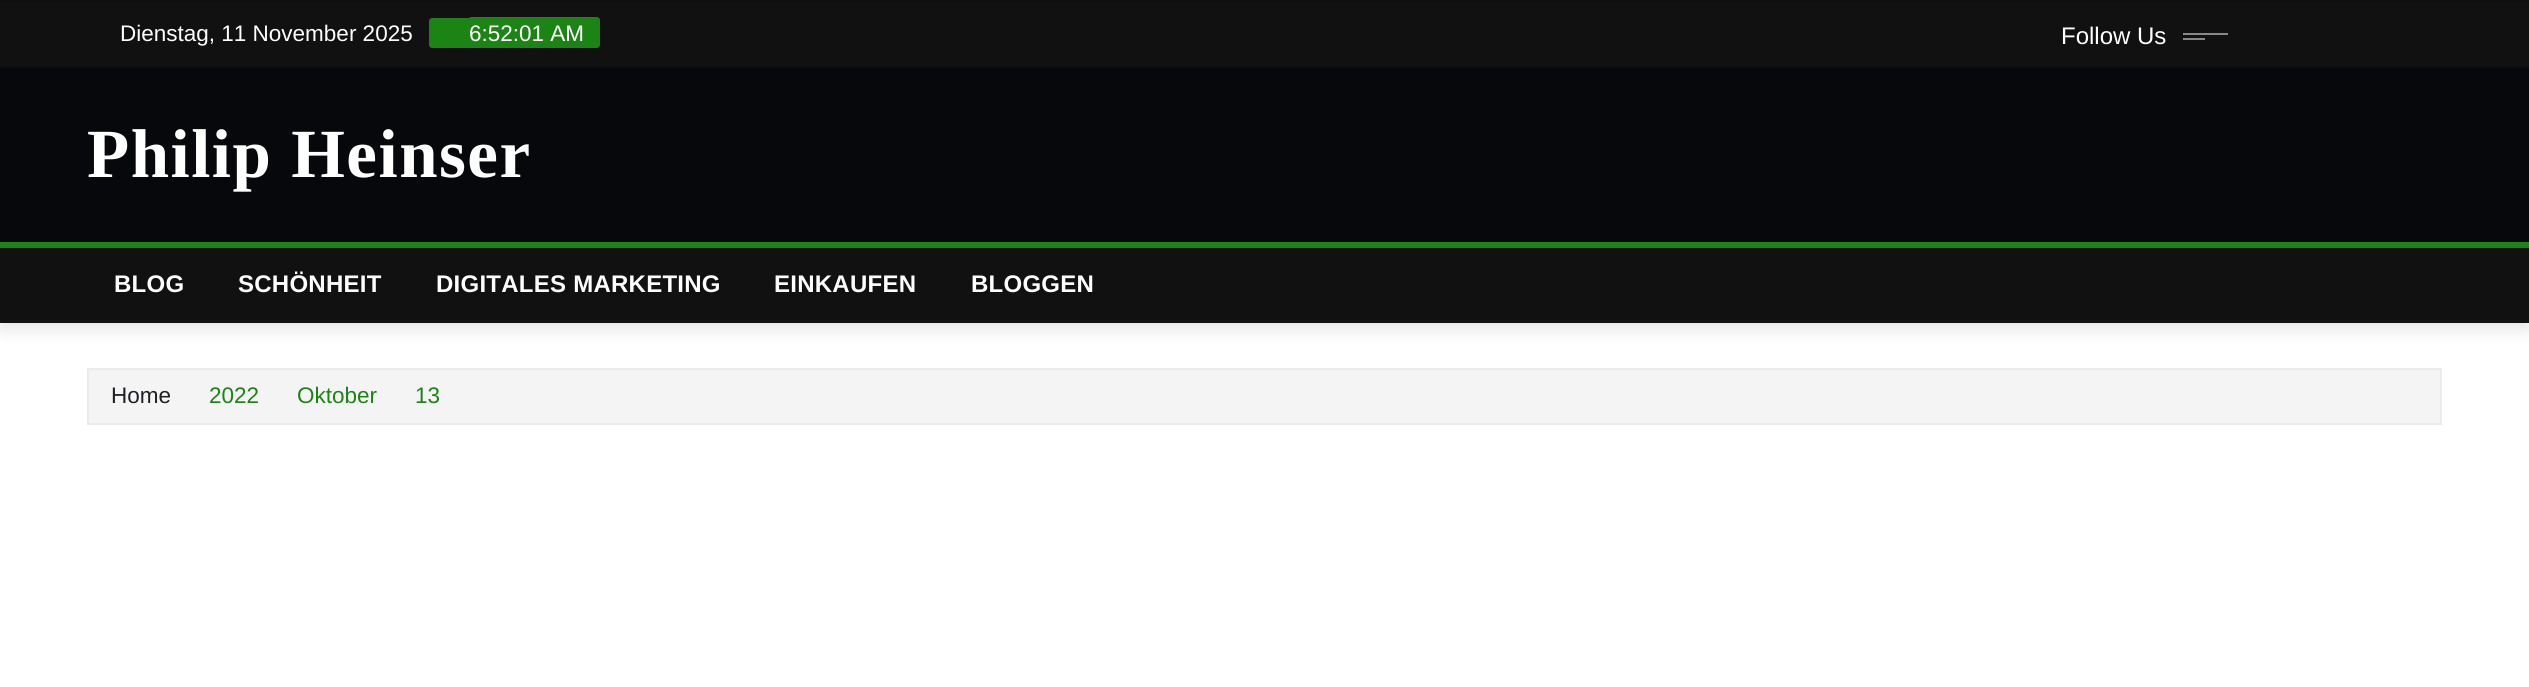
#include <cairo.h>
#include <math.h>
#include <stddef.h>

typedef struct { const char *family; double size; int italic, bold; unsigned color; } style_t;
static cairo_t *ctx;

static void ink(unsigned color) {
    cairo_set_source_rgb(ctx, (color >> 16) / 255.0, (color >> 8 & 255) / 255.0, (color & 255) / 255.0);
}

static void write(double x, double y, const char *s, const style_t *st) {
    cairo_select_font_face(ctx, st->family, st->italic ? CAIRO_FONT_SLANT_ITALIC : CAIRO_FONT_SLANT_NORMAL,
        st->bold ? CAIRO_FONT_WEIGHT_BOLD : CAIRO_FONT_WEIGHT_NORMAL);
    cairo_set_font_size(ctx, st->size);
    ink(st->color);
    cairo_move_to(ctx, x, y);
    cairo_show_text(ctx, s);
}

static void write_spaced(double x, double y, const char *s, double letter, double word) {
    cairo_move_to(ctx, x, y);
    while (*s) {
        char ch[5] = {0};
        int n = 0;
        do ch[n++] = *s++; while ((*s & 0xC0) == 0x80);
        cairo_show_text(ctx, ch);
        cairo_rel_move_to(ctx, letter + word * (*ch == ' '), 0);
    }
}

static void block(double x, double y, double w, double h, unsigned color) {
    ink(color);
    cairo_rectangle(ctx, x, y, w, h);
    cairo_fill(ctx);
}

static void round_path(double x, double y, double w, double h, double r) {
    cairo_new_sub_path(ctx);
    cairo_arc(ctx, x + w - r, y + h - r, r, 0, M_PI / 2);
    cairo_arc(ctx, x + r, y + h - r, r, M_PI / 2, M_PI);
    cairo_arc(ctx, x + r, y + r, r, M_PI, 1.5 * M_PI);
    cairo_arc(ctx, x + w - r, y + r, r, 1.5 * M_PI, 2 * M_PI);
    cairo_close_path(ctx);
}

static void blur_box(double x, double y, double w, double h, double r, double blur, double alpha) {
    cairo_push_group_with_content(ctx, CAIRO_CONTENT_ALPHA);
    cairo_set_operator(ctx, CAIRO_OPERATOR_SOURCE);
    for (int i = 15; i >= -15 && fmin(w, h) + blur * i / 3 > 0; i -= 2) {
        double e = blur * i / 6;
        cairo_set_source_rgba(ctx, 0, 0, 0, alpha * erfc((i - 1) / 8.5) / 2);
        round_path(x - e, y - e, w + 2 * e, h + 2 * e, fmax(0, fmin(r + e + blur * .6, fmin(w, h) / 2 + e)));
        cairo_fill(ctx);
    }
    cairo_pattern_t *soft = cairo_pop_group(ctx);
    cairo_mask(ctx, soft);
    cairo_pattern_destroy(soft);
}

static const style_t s1 = {"Liberation Sans", 22.5, 0, 0, 0xffffff};
static const style_t s2 = {"Liberation Sans", 24, 0, 0, 0xffffff};
static const style_t s3 = {"Liberation Sans", 22.5, 0, 0, 0x1f2024};
static const style_t s4 = {"Liberation Sans", 22.5, 0, 0, 0x1b8415};

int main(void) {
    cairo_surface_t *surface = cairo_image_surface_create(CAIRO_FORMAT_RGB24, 2529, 687);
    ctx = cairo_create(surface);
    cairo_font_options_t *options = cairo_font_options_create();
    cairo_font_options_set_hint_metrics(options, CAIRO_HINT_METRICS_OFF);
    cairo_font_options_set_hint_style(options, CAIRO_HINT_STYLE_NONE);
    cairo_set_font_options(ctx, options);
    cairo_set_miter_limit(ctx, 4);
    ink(0xffffff);
    cairo_paint(ctx);
    block(0, 2, 2529, 64, 0x111111);
    block(0, 0, 2529, 2, 0x0f0f0f);
    block(0, 66, 2529, 2, 0x0f0f0f);
    write(120, 41, "Dienstag, 11 November 2025", &s1);
    ink(0x1b8415);
    cairo_new_path(ctx);
    cairo_move_to(ctx, 470, 17);
    cairo_line_to(ctx, 597, 17);
    cairo_curve_to(ctx, 598.5, 17, 600, 18.5, 600, 20);
    cairo_line_to(ctx, 600, 45);
    cairo_curve_to(ctx, 600, 46.5, 598.5, 48, 597, 48);
    cairo_line_to(ctx, 470, 48);
    cairo_close_path(ctx);
    cairo_fill(ctx);
    write(469, 41, "6:52:01 AM", &s1);
    ink(0x1b8415);
    cairo_new_path(ctx);
    cairo_move_to(ctx, 432, 18);
    cairo_line_to(ctx, 470, 18);
    cairo_line_to(ctx, 470, 48);
    cairo_line_to(ctx, 432, 48);
    cairo_curve_to(ctx, 430.5, 48, 429, 46.5, 429, 45);
    cairo_line_to(ctx, 429, 21);
    cairo_curve_to(ctx, 429, 19.5, 430.5, 18, 432, 18);
    cairo_close_path(ctx);
    cairo_fill(ctx);
    write(2061, 44, "Follow Us", &s2);
    block(2183, 33, 45, 2, 0x888888);
    block(2183, 38, 22, 2, 0x888888);
    block(0, 68, 2529, 174, 0x06080b);
    cairo_select_font_face(ctx, "Liberation Serif", CAIRO_FONT_SLANT_NORMAL, CAIRO_FONT_WEIGHT_BOLD);
    cairo_set_font_size(ctx, 69);
    ink(0xffffff);
    write_spaced(87, 177, "Philip Heinser", 1.5, 0);
    ink(0x000000);
    blur_box(0, 249, 2529, 81, 0, 7.5, 0.1);
    block(0, 248, 2529, 75, 0x111111);
    block(0, 242, 2529, 6, 0x1b8415);
    cairo_select_font_face(ctx, "Liberation Sans", CAIRO_FONT_SLANT_NORMAL, CAIRO_FONT_WEIGHT_BOLD);
    cairo_set_font_size(ctx, 24);
    ink(0xffffff);
    write_spaced(114, 292, "BLOG", 0.25, 0);
    write_spaced(238, 292, "SCHÖNHEIT", 0.25, 0);
    write_spaced(436, 292, "DIGITALES MARKETING", 0.25, 0);
    write_spaced(774, 292, "EINKAUFEN", 0.25, 0);
    write_spaced(971, 292, "BLOGGEN", 0.25, 0);
    ink(0xf4f4f5);
    cairo_rectangle(ctx, 88, 369, 2353, 55);
    cairo_fill_preserve(ctx);
    ink(0xebebeb);
    cairo_stroke(ctx);
    write(111, 403, "Home", &s3);
    write(209, 403, "2022", &s4);
    write(297, 403, "Oktober", &s4);
    write(415, 403, "13", &s4);
    cairo_surface_write_to_png(surface, "screenshot.png");
    cairo_font_options_destroy(options);
    cairo_destroy(ctx);
    cairo_surface_destroy(surface);
    return 0;
}
